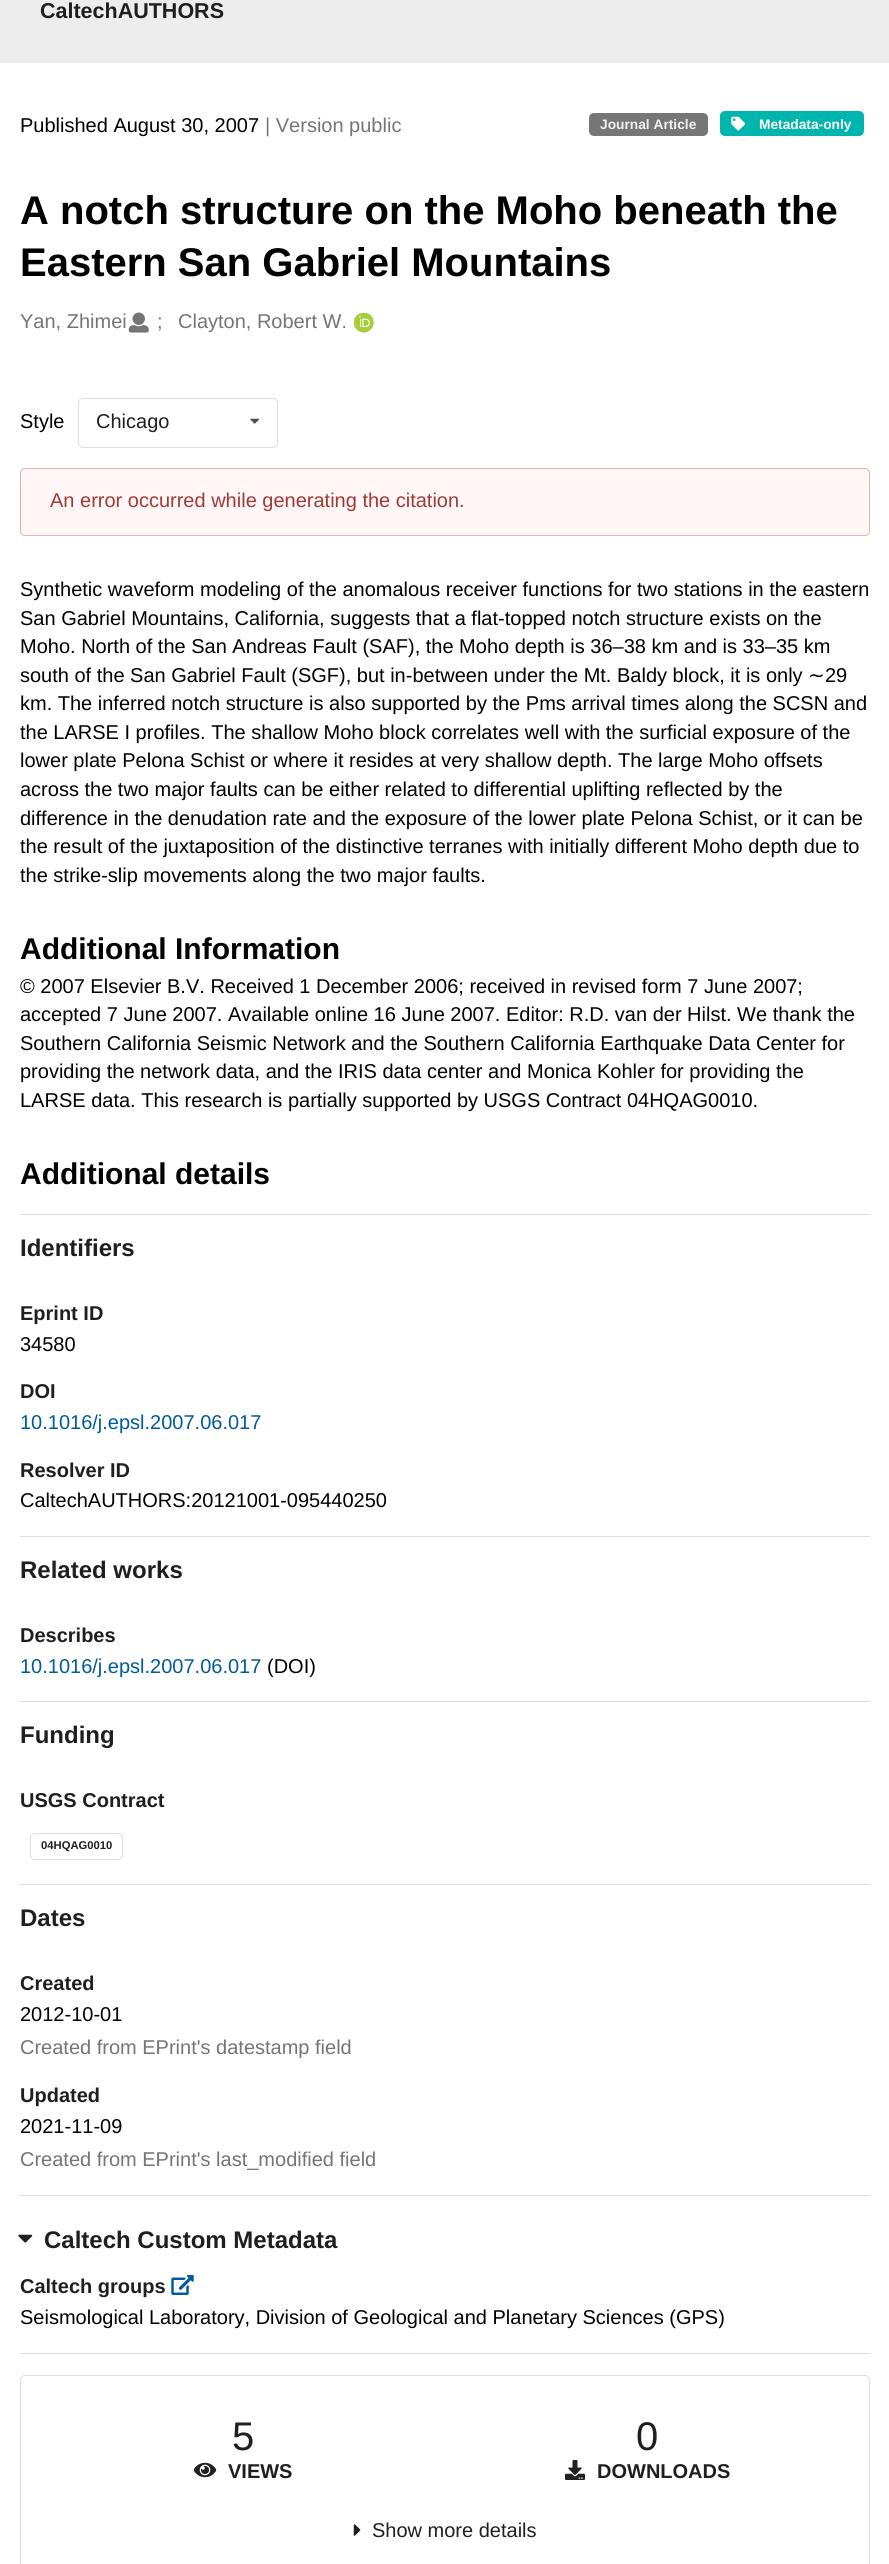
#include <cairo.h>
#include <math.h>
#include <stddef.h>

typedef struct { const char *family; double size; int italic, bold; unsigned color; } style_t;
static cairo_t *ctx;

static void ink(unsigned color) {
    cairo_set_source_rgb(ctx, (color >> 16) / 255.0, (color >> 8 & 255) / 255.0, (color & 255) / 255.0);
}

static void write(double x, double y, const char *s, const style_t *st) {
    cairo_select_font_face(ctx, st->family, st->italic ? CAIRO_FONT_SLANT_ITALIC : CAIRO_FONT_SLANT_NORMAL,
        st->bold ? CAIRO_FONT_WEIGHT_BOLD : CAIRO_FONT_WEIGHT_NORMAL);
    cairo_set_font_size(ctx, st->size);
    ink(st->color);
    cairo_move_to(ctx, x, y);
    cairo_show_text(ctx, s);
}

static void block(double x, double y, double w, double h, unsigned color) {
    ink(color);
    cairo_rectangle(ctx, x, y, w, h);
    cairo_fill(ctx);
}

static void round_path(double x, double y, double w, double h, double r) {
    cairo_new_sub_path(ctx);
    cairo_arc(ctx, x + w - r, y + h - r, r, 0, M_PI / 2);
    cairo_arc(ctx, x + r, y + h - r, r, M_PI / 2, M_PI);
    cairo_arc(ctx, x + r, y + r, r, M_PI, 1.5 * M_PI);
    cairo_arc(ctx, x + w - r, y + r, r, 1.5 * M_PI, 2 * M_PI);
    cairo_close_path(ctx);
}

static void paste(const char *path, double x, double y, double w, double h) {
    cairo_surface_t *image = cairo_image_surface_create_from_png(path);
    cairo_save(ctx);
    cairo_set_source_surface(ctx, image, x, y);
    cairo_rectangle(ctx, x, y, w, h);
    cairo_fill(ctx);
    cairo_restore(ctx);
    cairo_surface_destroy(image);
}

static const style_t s1 = {"Liberation Sans", 21.5, 0, 1, 0x1f1f1f};
static const style_t s2 = {"Liberation Sans", 20, 0, 0, 0x000000};
static const style_t s3 = {"Liberation Sans", 20, 0, 0, 0x757575};
static const style_t s4 = {"Liberation Sans", 13.75, 0, 1, 0xf1f1f1};
static const style_t s5 = {"Liberation Sans", 13.75, 0, 1, 0xffffff};
static const style_t s6 = {"Liberation Sans", 40, 0, 1, 0x000000};
static const style_t s7 = {"Liberation Sans", 20, 0, 0, 0x1f1f1f};
static const style_t s8 = {"Liberation Sans", 20, 0, 0, 0x9f3a38};
static const style_t s9 = {"DejaVu Sans", 20, 0, 0, 0x000000};
static const style_t s10 = {"Liberation Sans", 30, 0, 1, 0x000000};
static const style_t s11 = {"Liberation Sans", 24, 0, 1, 0x1f1f1f};
static const style_t s12 = {"Liberation Sans", 20, 0, 1, 0x1f1f1f};
static const style_t s13 = {"Liberation Sans", 20, 0, 0, 0x005b9e};
static const style_t s14 = {"Liberation Sans", 11.25, 0, 1, 0x1f1f1f};
static const style_t s15 = {"Liberation Sans", 40, 0, 0, 0x1f1f1f};

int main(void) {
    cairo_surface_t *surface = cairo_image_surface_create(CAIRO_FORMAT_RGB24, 889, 2564);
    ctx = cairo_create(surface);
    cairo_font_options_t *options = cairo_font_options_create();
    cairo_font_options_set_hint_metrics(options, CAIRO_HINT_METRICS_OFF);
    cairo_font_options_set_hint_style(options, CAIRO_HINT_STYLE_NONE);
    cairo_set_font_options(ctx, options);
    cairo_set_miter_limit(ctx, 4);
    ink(0xffffff);
    cairo_paint(ctx);
    block(0, 0, 889, 63, 0xededed);
    write(40, 18, "CaltechAUTHORS", &s1);
    write(20, 132, "Published August 30, 2007", &s2);
    write(265, 132, "| Version public", &s3);
    ink(0x767676);
    round_path(589, 113, 119, 23, 5);
    cairo_fill(ctx);
    write(600, 129, "Journal Article", &s4);
    ink(0x00b5ad);
    round_path(720, 111, 144, 25, 5);
    cairo_fill(ctx);
    paste("pic1.png", 731, 116, 14, 15);
    write(759, 129, "Metadata-only", &s5);
    write(20, 224, "A notch structure on the Moho beneath the", &s6);
    write(20, 276, "Eastern San Gabriel Mountains", &s6);
    write(20, 328, "Yan, Zhimei", &s3);
    paste("pic2.png", 128, 312, 21, 21);
    write(157, 328, ";", &s3);
    write(178, 328, "Clayton, Robert W.", &s3);
    paste("pic3.png", 354, 313, 20, 20);
    write(20, 428, "Style", &s2);
    round_path(78.5, 398.5, 199, 49, 4.5);
    ink(0xdedede);
    cairo_set_line_width(ctx, 1);
    cairo_stroke(ctx);
    write(96, 428, "Chicago", &s7);
    paste("pic4.png", 250, 418, 9, 6);
    ink(0xfff6f6);
    round_path(20.5, 468.5, 849, 67, 4.5);
    cairo_fill_preserve(ctx);
    ink(0xe0b4b4);
    cairo_stroke(ctx);
    write(50, 507, "An error occurred while generating the citation.", &s8);
    write(20, 596, "Synthetic waveform modeling of the anomalous receiver functions for two stations in the eastern", &s2);
    write(20, 625, "San Gabriel Mountains, California, suggests that a flat-topped notch structure exists on the", &s2);
    write(20, 653, "Moho. North of the San Andreas Fault (SAF), the Moho depth is 36–38 km and is 33–35 km", &s2);
    write(20, 682, "south of the San Gabriel Fault (SGF), but in-between under the Mt. Baldy block, it is only", &s2);
    write(808, 682, "∼", &s9);
    write(825, 682, "29", &s2);
    write(20, 710, "km. The inferred notch structure is also supported by the Pms arrival times along the SCSN and", &s2);
    write(20, 739, "the LARSE I profiles. The shallow Moho block correlates well with the surficial exposure of the", &s2);
    write(20, 767, "lower plate Pelona Schist or where it resides at very shallow depth. The large Moho offsets", &s2);
    write(20, 796, "across the two major faults can be either related to differential uplifting reflected by the", &s2);
    write(20, 825, "difference in the denudation rate and the exposure of the lower plate Pelona Schist, or it can be", &s2);
    write(20, 853, "the result of the juxtaposition of the distinctive terranes with initially different Moho depth due to", &s2);
    write(20, 882, "the strike-slip movements along the two major faults.", &s2);
    write(20, 959, "Additional Information", &s10);
    write(20, 993, "© 2007 Elsevier B.V. Received 1 December 2006; received in revised form 7 June 2007;", &s2);
    write(20, 1021, "accepted 7 June 2007. Available online 16 June 2007. Editor: R.D. van der Hilst. We thank the", &s2);
    write(20, 1050, "Southern California Seismic Network and the Southern California Earthquake Data Center for", &s2);
    write(20, 1078, "providing the network data, and the IRIS data center and Monica Kohler for providing the", &s2);
    write(20, 1107, "LARSE data. This research is partially supported by USGS Contract 04HQAG0010.", &s2);
    write(20, 1184, "Additional details", &s10);
    block(20, 1214, 850, 1, 0xdedede);
    write(20, 1256, "Identifiers", &s11);
    write(20, 1320, "Eprint ID", &s12);
    write(20, 1351, "34580", &s2);
    write(20, 1398, "DOI", &s12);
    write(20, 1429, "10.1016/j.epsl.2007.06.017", &s13);
    write(20, 1477, "Resolver ID", &s12);
    write(20, 1507, "CaltechAUTHORS:20121001-095440250", &s2);
    block(20, 1536, 850, 1, 0xdedede);
    write(20, 1578, "Related works", &s11);
    write(20, 1642, "Describes", &s12);
    write(20, 1673, "10.1016/j.epsl.2007.06.017", &s13);
    write(267, 1673, "(DOI)", &s2);
    block(20, 1701, 850, 1, 0xdedede);
    write(20, 1743, "Funding", &s11);
    write(20, 1807, "USGS Contract", &s12);
    round_path(30.5, 1833.5, 92, 26, 4.5);
    ink(0xdedede);
    cairo_stroke(ctx);
    write(41, 1849, "04HQAG0010", &s14);
    block(20, 1884, 850, 1, 0xdedede);
    write(20, 1926, "Dates", &s11);
    write(20, 1990, "Created", &s12);
    write(20, 2021, "2012-10-01", &s2);
    write(20, 2054, "Created from EPrint's datestamp field", &s3);
    write(20, 2102, "Updated", &s12);
    write(20, 2133, "2021-11-09", &s2);
    write(20, 2166, "Created from EPrint's last_modified field", &s3);
    block(20, 2195, 850, 1, 0xdedede);
    paste("pic5.png", 18, 2234, 15, 9);
    write(44, 2248, "Caltech Custom Metadata", &s11);
    write(20, 2293, "Caltech groups", &s12);
    paste("pic6.png", 171, 2275, 23, 20);
    write(20, 2324, "Seismological Laboratory, Division of Geological and Planetary Sciences (GPS)", &s2);
    block(20, 2353, 850, 1, 0xdedede);
    round_path(20.5, 2375.5, 849, 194, 4.5);
    cairo_stroke(ctx);
    write(232, 2450, "5", &s15);
    paste("pic7.png", 193, 2462, 24, 16);
    write(228, 2478, "VIEWS", &s12);
    write(636, 2450, "0", &s15);
    paste("pic8.png", 565, 2460, 20, 20);
    write(597, 2478, "DOWNLOADS", &s12);
    paste("pic9.png", 353, 2524, 8, 12);
    write(372, 2537, "Show more details", &s7);
    cairo_surface_write_to_png(surface, "screenshot.png");
    cairo_font_options_destroy(options);
    cairo_destroy(ctx);
    cairo_surface_destroy(surface);
    return 0;
}
